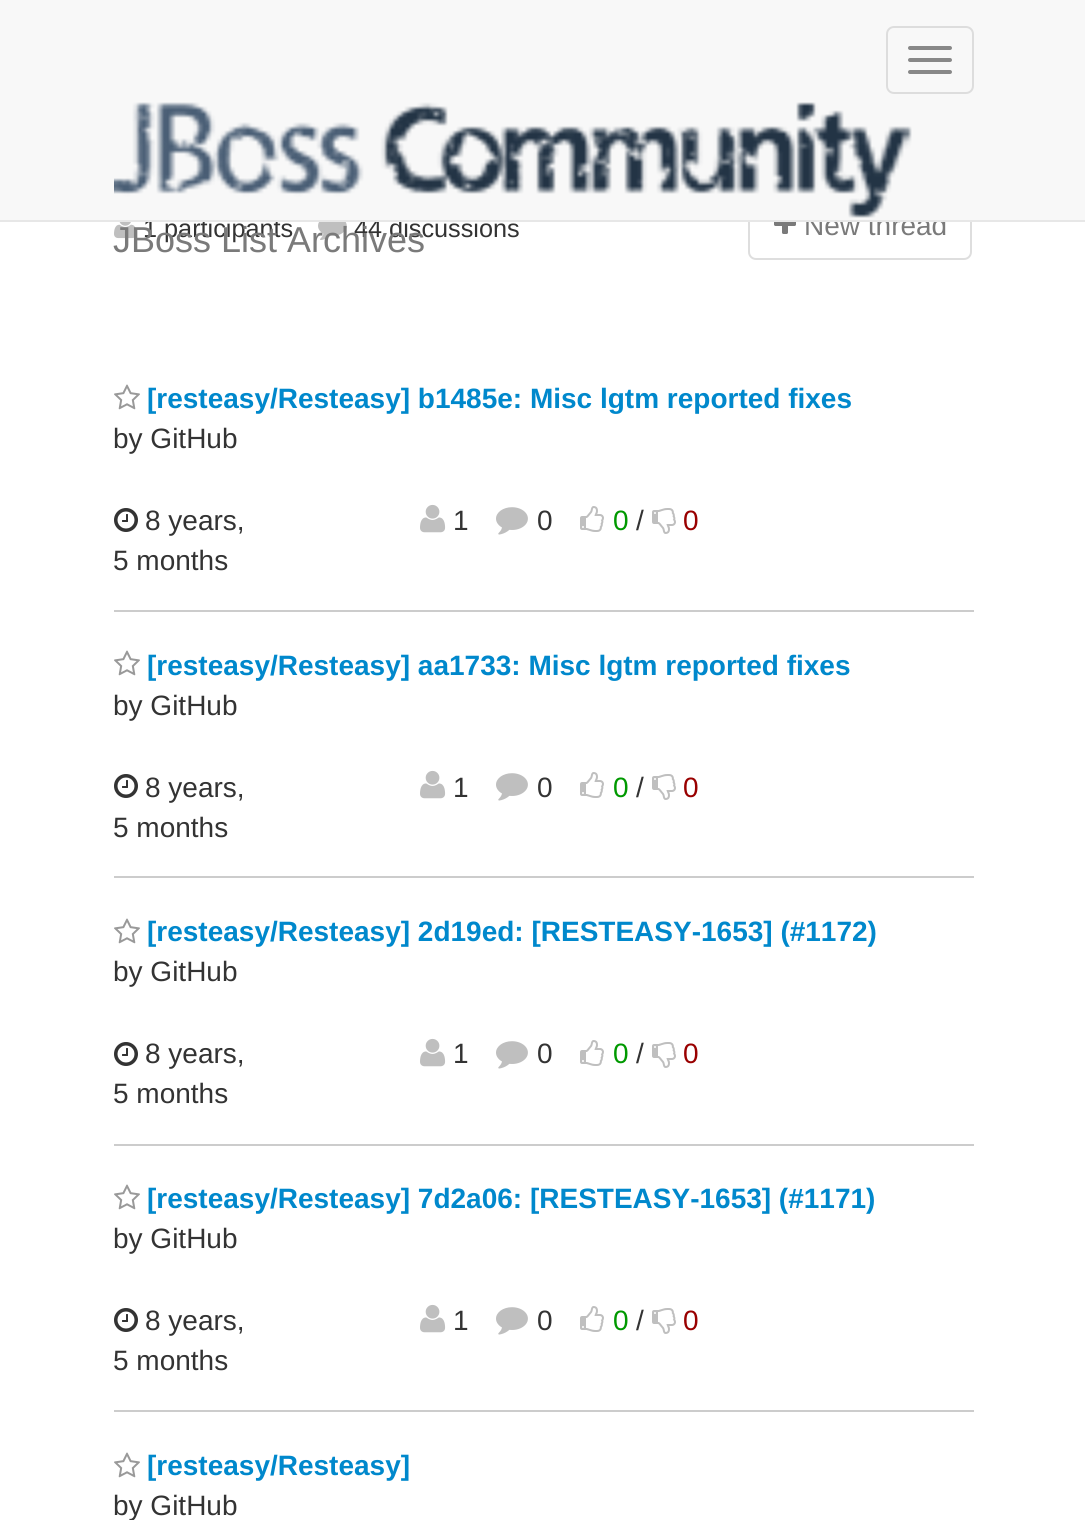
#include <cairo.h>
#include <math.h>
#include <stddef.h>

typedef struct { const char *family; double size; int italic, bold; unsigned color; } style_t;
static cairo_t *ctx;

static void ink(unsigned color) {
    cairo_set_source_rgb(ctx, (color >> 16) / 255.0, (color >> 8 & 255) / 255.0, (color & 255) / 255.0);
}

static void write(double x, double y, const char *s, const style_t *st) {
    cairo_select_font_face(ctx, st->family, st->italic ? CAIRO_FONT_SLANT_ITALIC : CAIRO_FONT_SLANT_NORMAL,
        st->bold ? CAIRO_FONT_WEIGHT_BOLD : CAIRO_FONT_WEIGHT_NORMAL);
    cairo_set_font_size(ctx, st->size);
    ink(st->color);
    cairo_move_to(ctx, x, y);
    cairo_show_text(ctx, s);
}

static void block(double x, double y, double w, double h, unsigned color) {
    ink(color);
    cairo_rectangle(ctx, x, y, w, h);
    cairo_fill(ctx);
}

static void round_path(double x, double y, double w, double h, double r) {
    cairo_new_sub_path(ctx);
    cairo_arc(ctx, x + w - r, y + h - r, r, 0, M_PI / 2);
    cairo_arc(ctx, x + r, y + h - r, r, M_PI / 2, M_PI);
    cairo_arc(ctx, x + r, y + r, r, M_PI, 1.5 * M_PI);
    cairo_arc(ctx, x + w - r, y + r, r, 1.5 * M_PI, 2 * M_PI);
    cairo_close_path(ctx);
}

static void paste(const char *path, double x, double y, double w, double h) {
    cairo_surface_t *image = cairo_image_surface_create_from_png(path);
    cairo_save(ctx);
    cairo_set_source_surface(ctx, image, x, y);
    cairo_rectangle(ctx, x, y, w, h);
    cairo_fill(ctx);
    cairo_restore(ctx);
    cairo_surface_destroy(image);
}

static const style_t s1 = {"Liberation Sans", 25.25, 0, 0, 0x333333};
static const style_t s2 = {"Liberation Sans", 28, 0, 0, 0x7a7a7a};
static const style_t s3 = {"Liberation Sans", 28, 0, 1, 0x0088cc};
static const style_t s4 = {"Liberation Sans", 28, 0, 0, 0x333333};
static const style_t s5 = {"Liberation Sans", 28, 0, 0, 0x009900};
static const style_t s6 = {"Liberation Sans", 28, 0, 0, 0x990000};
static const style_t s7 = {"Liberation Sans", 36, 0, 0, 0x7a7a7a};

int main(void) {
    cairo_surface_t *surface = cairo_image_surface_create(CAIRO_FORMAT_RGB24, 1085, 1520);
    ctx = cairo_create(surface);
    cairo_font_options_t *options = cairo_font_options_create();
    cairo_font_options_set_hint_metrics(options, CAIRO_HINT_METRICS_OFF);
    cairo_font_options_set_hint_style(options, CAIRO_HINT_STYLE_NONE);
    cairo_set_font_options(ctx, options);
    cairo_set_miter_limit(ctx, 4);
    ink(0xffffff);
    cairo_paint(ctx);
    paste("pic1.png", 114, 222, 23, 17);
    write(143, 237, "1 participants", &s1);
    paste("pic2.png", 318, 222, 29, 18);
    write(354, 237, "44 discussions", &s1);
    round_path(749, 193, 222, 66, 7);
    ink(0xdedede);
    cairo_stroke(ctx);
    paste("pic3.png", 774, 222, 22, 12);
    write(804, 235, "New thread", &s2);
    block(114, 610, 860, 2, 0xcccccc);
    paste("pic4.png", 114, 384, 26, 26);
    write(147, 408, "[resteasy/Resteasy] b1485e: Misc lgtm reported fixes", &s3);
    write(113, 448, "by GitHub", &s4);
    paste("pic5.png", 114, 508, 24, 24);
    write(145, 530, "8 years,", &s4);
    write(113, 570, "5 months", &s4);
    paste("pic6.png", 420, 504, 26, 29);
    write(453, 530, "1", &s4);
    paste("pic7.png", 496, 507, 32, 28);
    write(537, 530, "0", &s4);
    paste("pic8.png", 580, 506, 24, 26);
    write(613, 530, "0", &s5);
    write(636, 530, "/", &s4);
    paste("pic9.png", 652, 508, 24, 26);
    write(683, 530, "0", &s6);
    block(114, 876, 860, 2, 0xcccccc);
    paste("pic4.png", 114, 650, 26, 26);
    write(147, 675, "[resteasy/Resteasy] aa1733: Misc lgtm reported fixes", &s3);
    write(113, 715, "by GitHub", &s4);
    paste("pic5.png", 114, 774, 24, 24);
    write(145, 797, "8 years,", &s4);
    write(113, 837, "5 months", &s4);
    paste("pic6.png", 420, 770, 26, 29);
    write(453, 797, "1", &s4);
    paste("pic7.png", 496, 773, 32, 28);
    write(537, 797, "0", &s4);
    paste("pic8.png", 580, 772, 24, 26);
    write(613, 797, "0", &s5);
    write(636, 797, "/", &s4);
    paste("pic9.png", 652, 774, 24, 26);
    write(683, 797, "0", &s6);
    block(114, 1144, 860, 2, 0xcccccc);
    paste("pic4.png", 114, 918, 26, 26);
    write(147, 941, "[resteasy/Resteasy] 2d19ed: [RESTEASY-1653] (#1172)", &s3);
    write(113, 981, "by GitHub", &s4);
    paste("pic5.png", 114, 1042, 24, 24);
    write(145, 1063, "8 years,", &s4);
    write(113, 1103, "5 months", &s4);
    paste("pic6.png", 420, 1038, 26, 29);
    write(453, 1063, "1", &s4);
    paste("pic7.png", 496, 1041, 32, 28);
    write(537, 1063, "0", &s4);
    paste("pic8.png", 580, 1040, 24, 26);
    write(613, 1063, "0", &s5);
    write(636, 1063, "/", &s4);
    paste("pic9.png", 652, 1042, 24, 26);
    write(683, 1063, "0", &s6);
    block(114, 1410, 860, 2, 0xcccccc);
    paste("pic4.png", 114, 1184, 26, 26);
    write(147, 1208, "[resteasy/Resteasy] 7d2a06: [RESTEASY-1653] (#1171)", &s3);
    write(113, 1248, "by GitHub", &s4);
    paste("pic5.png", 114, 1308, 24, 24);
    write(145, 1330, "8 years,", &s4);
    write(113, 1370, "5 months", &s4);
    paste("pic6.png", 420, 1304, 26, 29);
    write(453, 1330, "1", &s4);
    paste("pic7.png", 496, 1307, 32, 28);
    write(537, 1330, "0", &s4);
    paste("pic8.png", 580, 1306, 24, 26);
    write(613, 1330, "0", &s5);
    write(636, 1330, "/", &s4);
    paste("pic9.png", 652, 1308, 24, 26);
    write(683, 1330, "0", &s6);
    paste("pic4.png", 114, 1452, 26, 26);
    write(147, 1475, "[resteasy/Resteasy]", &s3);
    write(113, 1515, "by GitHub", &s4);
    block(0, 0, 1085, 220, 0xf8f8f8);
    block(0, 220, 1085, 2, 0xe7e7e7);
    round_path(887, 27, 86, 66, 7);
    ink(0xdddddd);
    cairo_stroke(ctx);
    ink(0x888888);
    round_path(908, 46, 44, 4, 2);
    cairo_fill(ctx);
    round_path(908, 58, 44, 4, 2);
    cairo_fill(ctx);
    round_path(908, 70, 44, 4, 2);
    cairo_fill(ctx);
    paste("pic10.png", 114, 102, 798, 116);
    write(113, 252, "JBoss List Archives", &s7);
    cairo_surface_write_to_png(surface, "screenshot.png");
    cairo_font_options_destroy(options);
    cairo_destroy(ctx);
    cairo_surface_destroy(surface);
    return 0;
}
